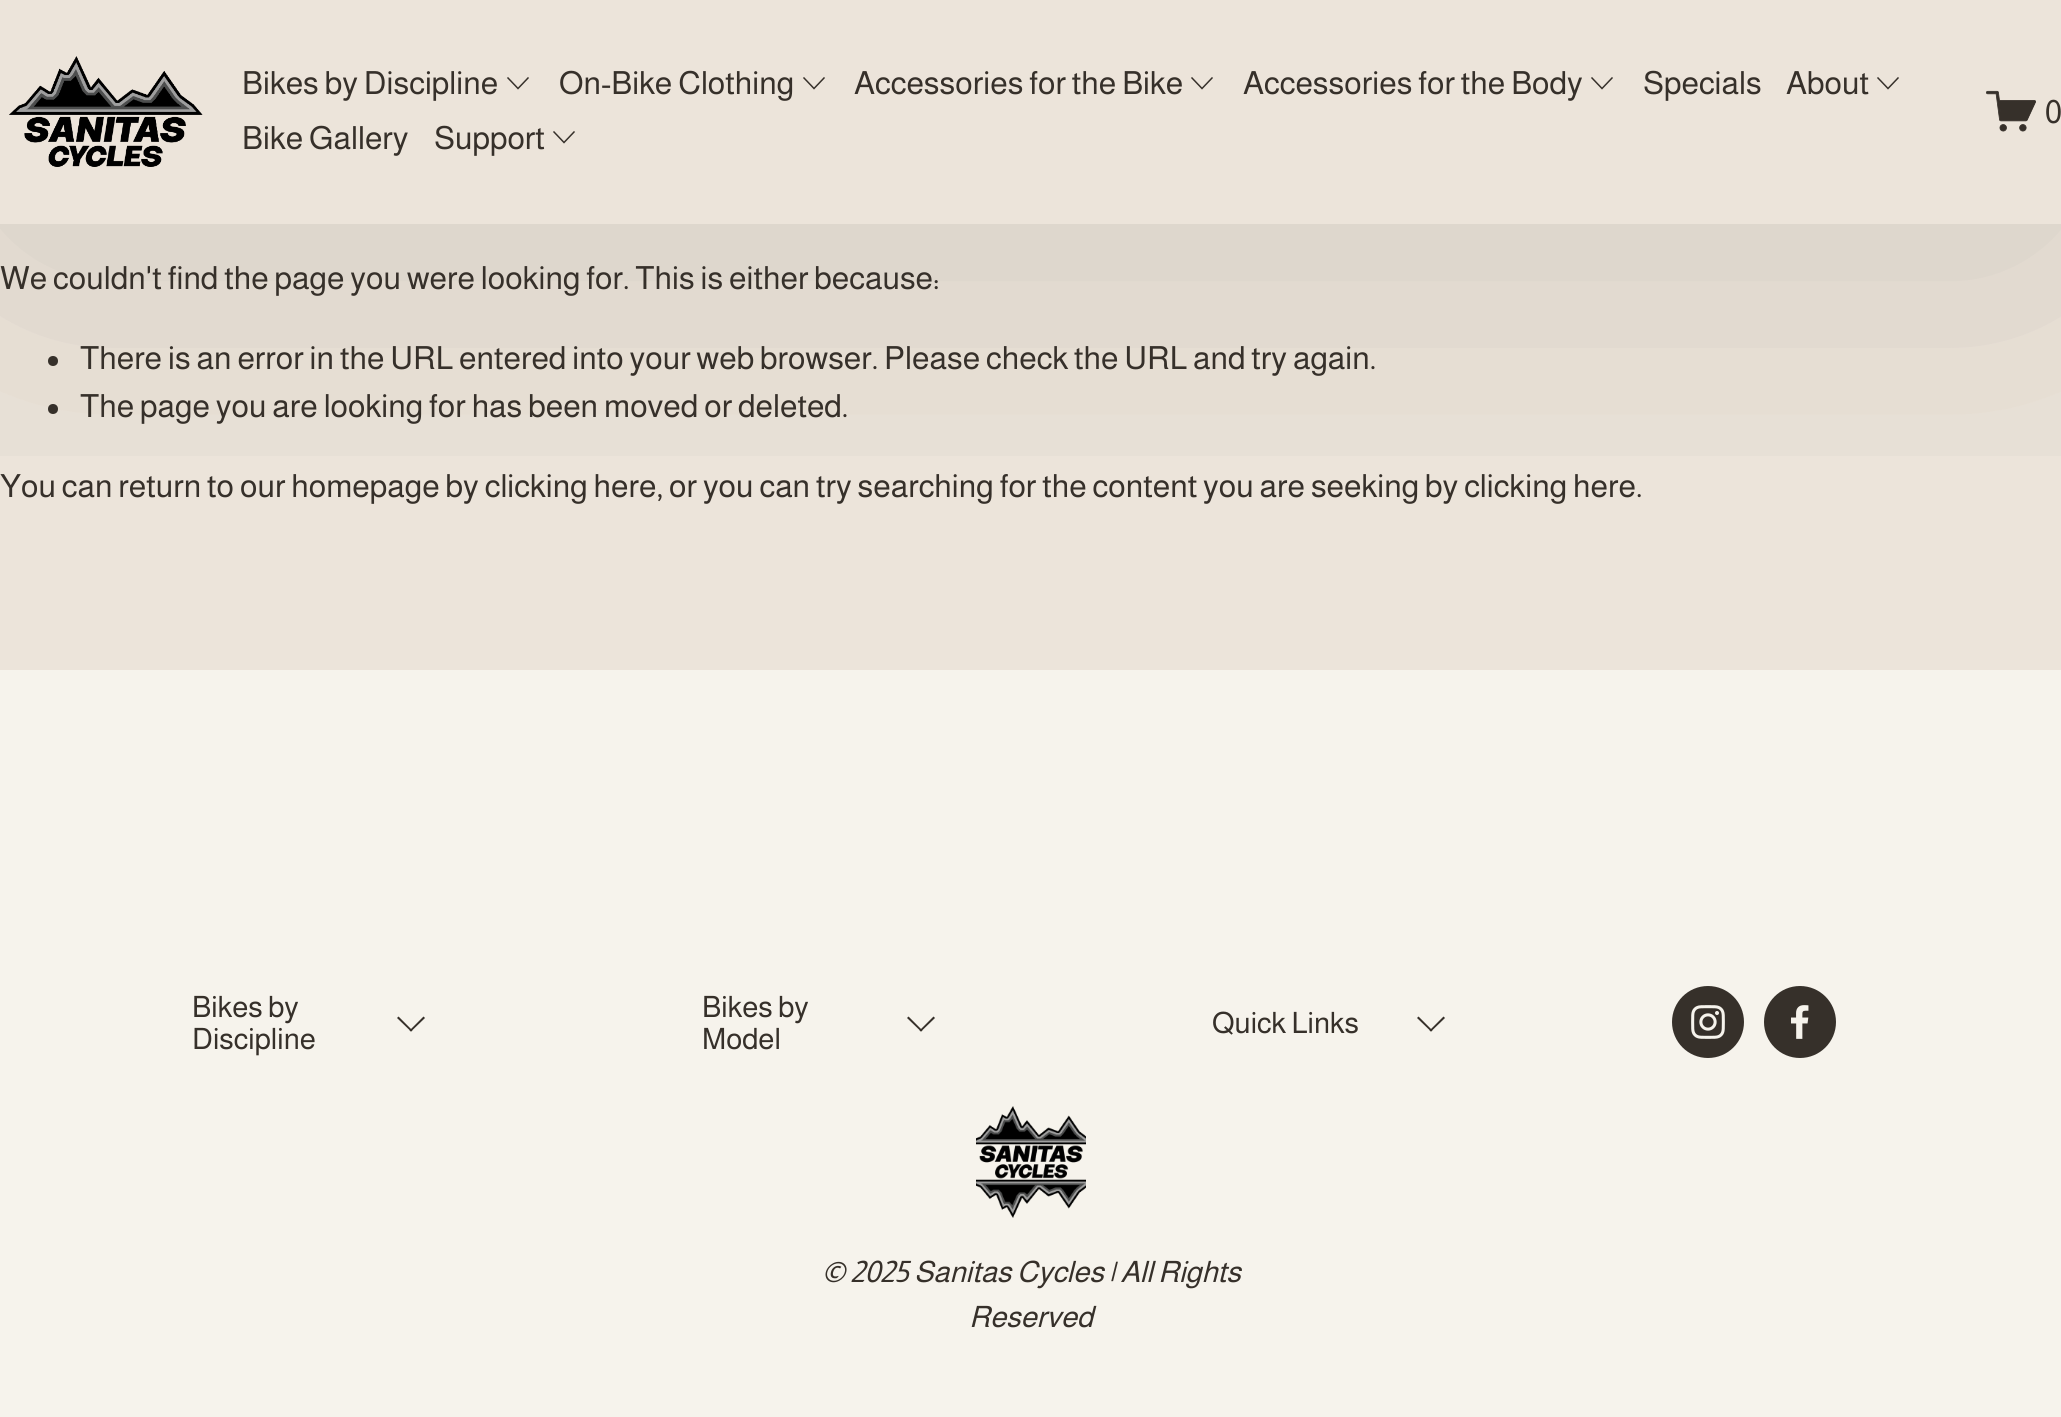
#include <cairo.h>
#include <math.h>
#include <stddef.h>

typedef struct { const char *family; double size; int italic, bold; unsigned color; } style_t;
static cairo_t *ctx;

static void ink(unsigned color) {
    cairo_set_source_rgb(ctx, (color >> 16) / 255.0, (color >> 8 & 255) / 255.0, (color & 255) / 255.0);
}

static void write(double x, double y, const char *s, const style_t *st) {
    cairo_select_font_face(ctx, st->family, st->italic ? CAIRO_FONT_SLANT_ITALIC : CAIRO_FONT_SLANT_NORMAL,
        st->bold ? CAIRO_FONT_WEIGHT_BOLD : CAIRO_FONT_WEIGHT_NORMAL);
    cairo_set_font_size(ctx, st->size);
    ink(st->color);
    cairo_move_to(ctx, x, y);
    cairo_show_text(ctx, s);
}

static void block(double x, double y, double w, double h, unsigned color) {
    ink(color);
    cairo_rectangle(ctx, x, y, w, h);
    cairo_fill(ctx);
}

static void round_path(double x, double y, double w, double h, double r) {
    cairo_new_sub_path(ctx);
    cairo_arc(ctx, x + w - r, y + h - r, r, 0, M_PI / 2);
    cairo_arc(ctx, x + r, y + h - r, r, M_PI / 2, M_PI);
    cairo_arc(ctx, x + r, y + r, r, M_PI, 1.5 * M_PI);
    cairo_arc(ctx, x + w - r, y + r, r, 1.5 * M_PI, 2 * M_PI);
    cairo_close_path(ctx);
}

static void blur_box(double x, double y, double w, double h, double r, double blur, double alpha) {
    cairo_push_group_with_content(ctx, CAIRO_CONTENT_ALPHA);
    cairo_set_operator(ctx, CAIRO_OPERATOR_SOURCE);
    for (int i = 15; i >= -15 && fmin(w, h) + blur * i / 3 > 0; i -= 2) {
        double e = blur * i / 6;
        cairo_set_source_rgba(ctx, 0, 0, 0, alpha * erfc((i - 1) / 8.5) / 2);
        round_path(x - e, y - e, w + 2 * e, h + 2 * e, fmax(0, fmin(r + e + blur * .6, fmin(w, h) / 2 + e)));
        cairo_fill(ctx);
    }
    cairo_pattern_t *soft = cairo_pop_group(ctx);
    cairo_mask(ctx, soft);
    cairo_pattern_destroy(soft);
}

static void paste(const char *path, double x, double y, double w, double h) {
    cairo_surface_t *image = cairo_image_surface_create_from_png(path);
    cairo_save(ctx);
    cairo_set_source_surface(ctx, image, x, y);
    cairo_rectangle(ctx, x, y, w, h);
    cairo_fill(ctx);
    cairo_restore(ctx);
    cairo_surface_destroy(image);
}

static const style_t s1 = {"Almarai", 32, 0, 0, 0x36302a};
static const style_t s2 = {"Almarai", 29.5, 0, 0, 0x36302a};
static const style_t s3 = {"Almarai", 29.5, 1, 0, 0x36302a};

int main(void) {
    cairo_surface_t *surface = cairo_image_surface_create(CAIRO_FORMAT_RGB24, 2061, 1417);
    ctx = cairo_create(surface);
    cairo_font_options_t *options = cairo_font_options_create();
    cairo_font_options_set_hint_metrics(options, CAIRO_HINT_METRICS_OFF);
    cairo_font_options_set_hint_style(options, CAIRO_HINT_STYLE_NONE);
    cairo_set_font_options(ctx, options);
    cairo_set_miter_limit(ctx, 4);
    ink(0xece4da);
    cairo_paint(ctx);
    ink(0x36302a);
    cairo_arc(ctx, 53, 361, 5, 0, 2 * M_PI);
    cairo_fill(ctx);
    cairo_arc(ctx, 53, 409, 5, 0, 2 * M_PI);
    cairo_fill(ctx);
    block(0, 670, 2061, 747, 0xf6f3ec);
    cairo_save(ctx);
    cairo_rectangle(ctx, 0, 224, 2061, 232);
    cairo_clip(ctx);
    ink(0x36302a);
    blur_box(0, 24, 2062, 224, 0, 200, 0.15);
    cairo_restore(ctx);
    paste("pic1.png", 9, 56, 194, 111);
    write(242, 94, "Bikes by Discipline", &s1);
    cairo_new_path(ctx);
    cairo_move_to(ctx, 528, 78);
    cairo_line_to(ctx, 518, 88.5);
    cairo_line_to(ctx, 508, 78);
    cairo_set_line_width(ctx, 1.5);
    cairo_set_line_cap(ctx, CAIRO_LINE_CAP_SQUARE);
    cairo_stroke(ctx);
    write(559, 94, "On-Bike Clothing", &s1);
    cairo_new_path(ctx);
    cairo_move_to(ctx, 824, 78);
    cairo_line_to(ctx, 814, 88.5);
    cairo_line_to(ctx, 804, 78);
    cairo_stroke(ctx);
    write(854, 94, "Accessories for the Bike", &s1);
    cairo_new_path(ctx);
    cairo_move_to(ctx, 1212, 78);
    cairo_line_to(ctx, 1202, 88.5);
    cairo_line_to(ctx, 1192, 78);
    cairo_stroke(ctx);
    write(1243, 94, "Accessories for the Body", &s1);
    cairo_new_path(ctx);
    cairo_move_to(ctx, 1612, 78);
    cairo_line_to(ctx, 1602, 88.5);
    cairo_line_to(ctx, 1592, 78);
    cairo_stroke(ctx);
    write(1643, 94, "Specials", &s1);
    write(1786, 94, "About", &s1);
    cairo_new_path(ctx);
    cairo_move_to(ctx, 1898, 78);
    cairo_line_to(ctx, 1888, 88.5);
    cairo_line_to(ctx, 1878, 78);
    cairo_stroke(ctx);
    write(242, 149, "Bike Gallery", &s1);
    write(434, 149, "Support", &s1);
    cairo_new_path(ctx);
    cairo_move_to(ctx, 574, 132);
    cairo_line_to(ctx, 564, 142.5);
    cairo_line_to(ctx, 554, 132);
    cairo_stroke(ctx);
    paste("pic2.png", 1986, 90, 50, 42);
    write(2045, 123, "0", &s1);
    write(0, 289, "We couldn't find the page you were looking for. This is either because:", &s1);
    write(80, 369, "There is an error in the URL entered into your web browser. Please check the URL and try again.", &s1);
    write(80, 417, "The page you are looking for has been moved or deleted.", &s1);
    write(0, 497, "You can return to our homepage by clicking here, or you can try searching for the content you are seeking by clicking here.", &s1);
    write(192, 1017, "Bikes by", &s2);
    write(192, 1049, "Discipline", &s2);
    cairo_new_path(ctx);
    cairo_move_to(ctx, 423.5, 1016.5);
    cairo_line_to(ctx, 425, 1018);
    cairo_line_to(ctx, 411, 1031.5);
    cairo_line_to(ctx, 409.5, 1030.5);
    cairo_close_path(ctx);
    cairo_fill(ctx);
    cairo_new_path(ctx);
    cairo_move_to(ctx, 398.5, 1016.5);
    cairo_line_to(ctx, 412.5, 1030.5);
    cairo_line_to(ctx, 411, 1031.5);
    cairo_line_to(ctx, 397, 1018);
    cairo_close_path(ctx);
    cairo_fill(ctx);
    write(702, 1017, "Bikes by", &s2);
    write(702, 1049, "Model", &s2);
    cairo_new_path(ctx);
    cairo_move_to(ctx, 933.5, 1016.5);
    cairo_line_to(ctx, 935, 1018);
    cairo_line_to(ctx, 921, 1031.5);
    cairo_line_to(ctx, 919.5, 1030.5);
    cairo_close_path(ctx);
    cairo_fill(ctx);
    cairo_new_path(ctx);
    cairo_move_to(ctx, 908.5, 1016.5);
    cairo_line_to(ctx, 922.5, 1030.5);
    cairo_line_to(ctx, 921, 1031.5);
    cairo_line_to(ctx, 907, 1018);
    cairo_close_path(ctx);
    cairo_fill(ctx);
    write(1212, 1033, "Quick Links", &s2);
    cairo_new_path(ctx);
    cairo_move_to(ctx, 1443.5, 1016.5);
    cairo_line_to(ctx, 1445, 1018);
    cairo_line_to(ctx, 1431, 1031.5);
    cairo_line_to(ctx, 1429.5, 1030.5);
    cairo_close_path(ctx);
    cairo_fill(ctx);
    cairo_new_path(ctx);
    cairo_move_to(ctx, 1418.5, 1016.5);
    cairo_line_to(ctx, 1432.5, 1030.5);
    cairo_line_to(ctx, 1431, 1031.5);
    cairo_line_to(ctx, 1417, 1018);
    cairo_close_path(ctx);
    cairo_fill(ctx);
    cairo_arc(ctx, 1708, 1022, 36, 0, 2 * M_PI);
    cairo_fill(ctx);
    paste("pic3.png", 1691, 1005, 34, 34);
    cairo_arc(ctx, 1800, 1022, 36, 0, 2 * M_PI);
    cairo_fill(ctx);
    paste("pic4.png", 1791, 1005, 18, 34);
    paste("pic5.png", 976, 1106, 110, 112);
    write(822, 1282, "© 2025 Sanitas Cycles | All Rights", &s3);
    write(969, 1327, "Reserved", &s3);
    cairo_surface_write_to_png(surface, "screenshot.png");
    cairo_font_options_destroy(options);
    cairo_destroy(ctx);
    cairo_surface_destroy(surface);
    return 0;
}
